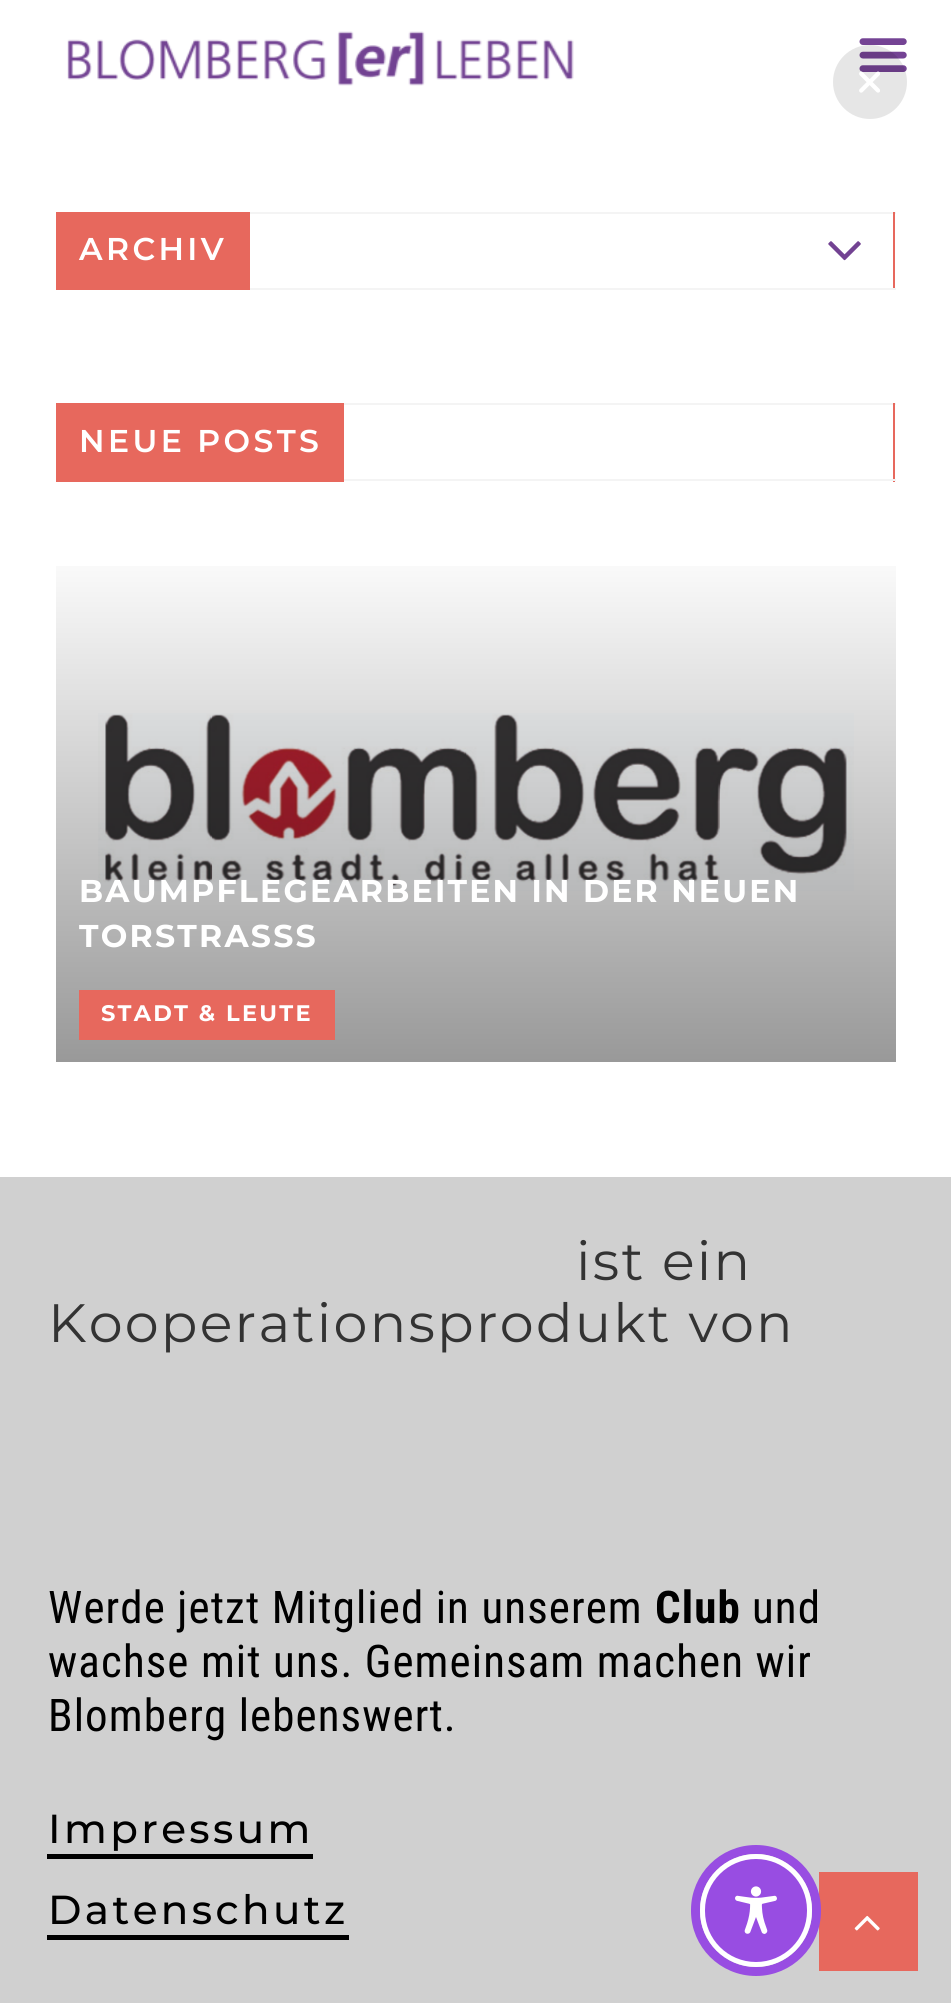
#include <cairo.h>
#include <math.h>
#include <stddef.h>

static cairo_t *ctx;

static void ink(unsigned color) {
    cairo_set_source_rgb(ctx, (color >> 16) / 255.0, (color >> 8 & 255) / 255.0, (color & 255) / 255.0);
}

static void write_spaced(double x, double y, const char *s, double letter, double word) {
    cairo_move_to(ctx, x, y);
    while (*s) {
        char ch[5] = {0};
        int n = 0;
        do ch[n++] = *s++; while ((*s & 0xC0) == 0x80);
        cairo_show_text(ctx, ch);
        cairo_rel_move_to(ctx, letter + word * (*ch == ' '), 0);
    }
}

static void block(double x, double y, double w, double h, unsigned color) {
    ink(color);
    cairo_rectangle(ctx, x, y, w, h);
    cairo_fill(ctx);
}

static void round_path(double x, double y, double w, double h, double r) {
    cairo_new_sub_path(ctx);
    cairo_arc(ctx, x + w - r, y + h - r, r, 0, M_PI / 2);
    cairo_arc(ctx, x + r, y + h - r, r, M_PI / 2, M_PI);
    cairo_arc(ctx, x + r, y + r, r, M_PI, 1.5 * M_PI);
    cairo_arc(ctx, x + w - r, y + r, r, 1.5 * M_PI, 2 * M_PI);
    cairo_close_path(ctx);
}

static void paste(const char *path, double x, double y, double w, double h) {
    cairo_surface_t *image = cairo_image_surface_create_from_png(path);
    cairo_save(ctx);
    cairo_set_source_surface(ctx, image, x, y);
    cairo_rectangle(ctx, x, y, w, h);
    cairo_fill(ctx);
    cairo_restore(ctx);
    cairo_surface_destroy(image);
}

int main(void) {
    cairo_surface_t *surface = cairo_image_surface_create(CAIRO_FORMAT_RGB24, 951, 2003);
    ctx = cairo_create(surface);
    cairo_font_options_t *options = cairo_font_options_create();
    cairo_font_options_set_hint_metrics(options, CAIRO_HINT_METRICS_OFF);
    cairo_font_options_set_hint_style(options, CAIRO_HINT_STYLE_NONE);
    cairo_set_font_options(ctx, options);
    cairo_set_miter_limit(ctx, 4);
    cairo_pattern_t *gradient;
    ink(0xffffff);
    cairo_paint(ctx);
    paste("pic1.png", 67, 31, 507, 55);
    paste("pic2.png", 859, 38, 48, 34);
    cairo_set_source_rgba(ctx, 0, 0, 0, 0.1);
    cairo_arc(ctx, 870, 82, 37, 0, 2 * M_PI);
    cairo_fill(ctx);
    paste("pic3.png", 859, 71, 21, 22);
    block(250, 212, 646, 2, 0xf4f4f4);
    block(893, 212, 2, 78, 0xe7685d);
    block(250, 288, 646, 2, 0xf4f4f4);
    block(56, 212, 194, 78, 0xe7685d);
    cairo_select_font_face(ctx, "Montserrat SemiBold", CAIRO_FONT_SLANT_NORMAL, CAIRO_FONT_WEIGHT_NORMAL);
    cairo_set_font_size(ctx, 31.5);
    ink(0xffffff);
    write_spaced(79, 260, "ARCHIV", 3.4, 0);
    paste("pic4.png", 828, 241, 33, 20);
    block(344, 403, 552, 2, 0xf4f4f4);
    block(893, 403, 2, 79, 0xe7685d);
    block(344, 479, 552, 2, 0xf4f4f4);
    block(56, 403, 288, 79, 0xe7685d);
    ink(0xffffff);
    write_spaced(79, 452, "NEUE POSTS", 3.4, 0);
    paste("pic5.png", 98, 713, 756, 178);
    gradient = cairo_pattern_create_linear(476, 538, 476, 1062);
    cairo_pattern_add_color_stop_rgba(gradient, 0, 0, 0, 0, 0);
    cairo_pattern_add_color_stop_rgba(gradient, 1, 0, 0, 0, 0.4);
    cairo_set_source(ctx, gradient);
    cairo_pattern_destroy(gradient);
    cairo_rectangle(ctx, 56, 566, 840, 496);
    cairo_fill(ctx);
    cairo_select_font_face(ctx, "Montserrat", CAIRO_FONT_SLANT_NORMAL, CAIRO_FONT_WEIGHT_BOLD);
    ink(0xffffff);
    write_spaced(79, 902, "BAUMPFLEGEARBEITEN IN DER NEUEN", 2.25, 0);
    write_spaced(79, 947, "TORSTRASSS", 2.25, 0);
    block(79, 990, 256, 50, 0xe7685d);
    cairo_set_font_size(ctx, 22.5);
    ink(0xffffff);
    write_spaced(101, 1021, "STADT & LEUTE", 2.25, 0);
    block(0, 1177, 951, 826, 0xd0d0d0);
    cairo_select_font_face(ctx, "Montserrat", CAIRO_FONT_SLANT_NORMAL, CAIRO_FONT_WEIGHT_NORMAL);
    cairo_set_font_size(ctx, 54);
    ink(0x333333);
    write_spaced(576, 1280, "ist ein", 2.25, 0);
    write_spaced(48, 1342, "Kooperationsprodukt von", 2.25, 0);
    cairo_select_font_face(ctx, "Roboto Condensed", CAIRO_FONT_SLANT_NORMAL, CAIRO_FONT_WEIGHT_NORMAL);
    cairo_set_font_size(ctx, 45);
    ink(0x000000);
    write_spaced(48, 1623, "Werde jetzt Mitglied in unserem", 1.1, 0);
    cairo_select_font_face(ctx, "Roboto Condensed", CAIRO_FONT_SLANT_NORMAL, CAIRO_FONT_WEIGHT_BOLD);
    write_spaced(655, 1623, "Club", 1.1, 0);
    cairo_select_font_face(ctx, "Roboto Condensed", CAIRO_FONT_SLANT_NORMAL, CAIRO_FONT_WEIGHT_NORMAL);
    write_spaced(752, 1623, "und", 1.1, 0);
    write_spaced(48, 1677, "wachse mit uns. Gemeinsam machen wir", 1.1, 0);
    write_spaced(48, 1731, "Blomberg lebenswert.", 1.1, 0);
    cairo_select_font_face(ctx, "Montserrat Medium", CAIRO_FONT_SLANT_NORMAL, CAIRO_FONT_WEIGHT_NORMAL);
    cairo_set_font_size(ctx, 40.5);
    write_spaced(48, 1843, "Impressum", 3.4, 0);
    block(47, 1854, 266, 5, 0x000000);
    write_spaced(48, 1924, "Datenschutz", 3.4, 0);
    block(47, 1935, 302, 5, 0x000000);
    block(819, 1872, 99, 99, 0xe7685d);
    round_path(695.5, 1849.5, 121, 122, 60.5);
    ink(0x984de2);
    cairo_set_line_width(ctx, 9);
    cairo_stroke(ctx);
    round_path(702.5, 1856.5, 107, 108, 53.5);
    cairo_fill_preserve(ctx);
    ink(0xffffff);
    cairo_set_line_width(ctx, 5);
    cairo_stroke(ctx);
    paste("pic6.png", 735, 1886, 42, 48);
    paste("pic7.png", 854, 1915, 26, 16);
    cairo_surface_write_to_png(surface, "screenshot.png");
    cairo_font_options_destroy(options);
    cairo_destroy(ctx);
    cairo_surface_destroy(surface);
    return 0;
}
